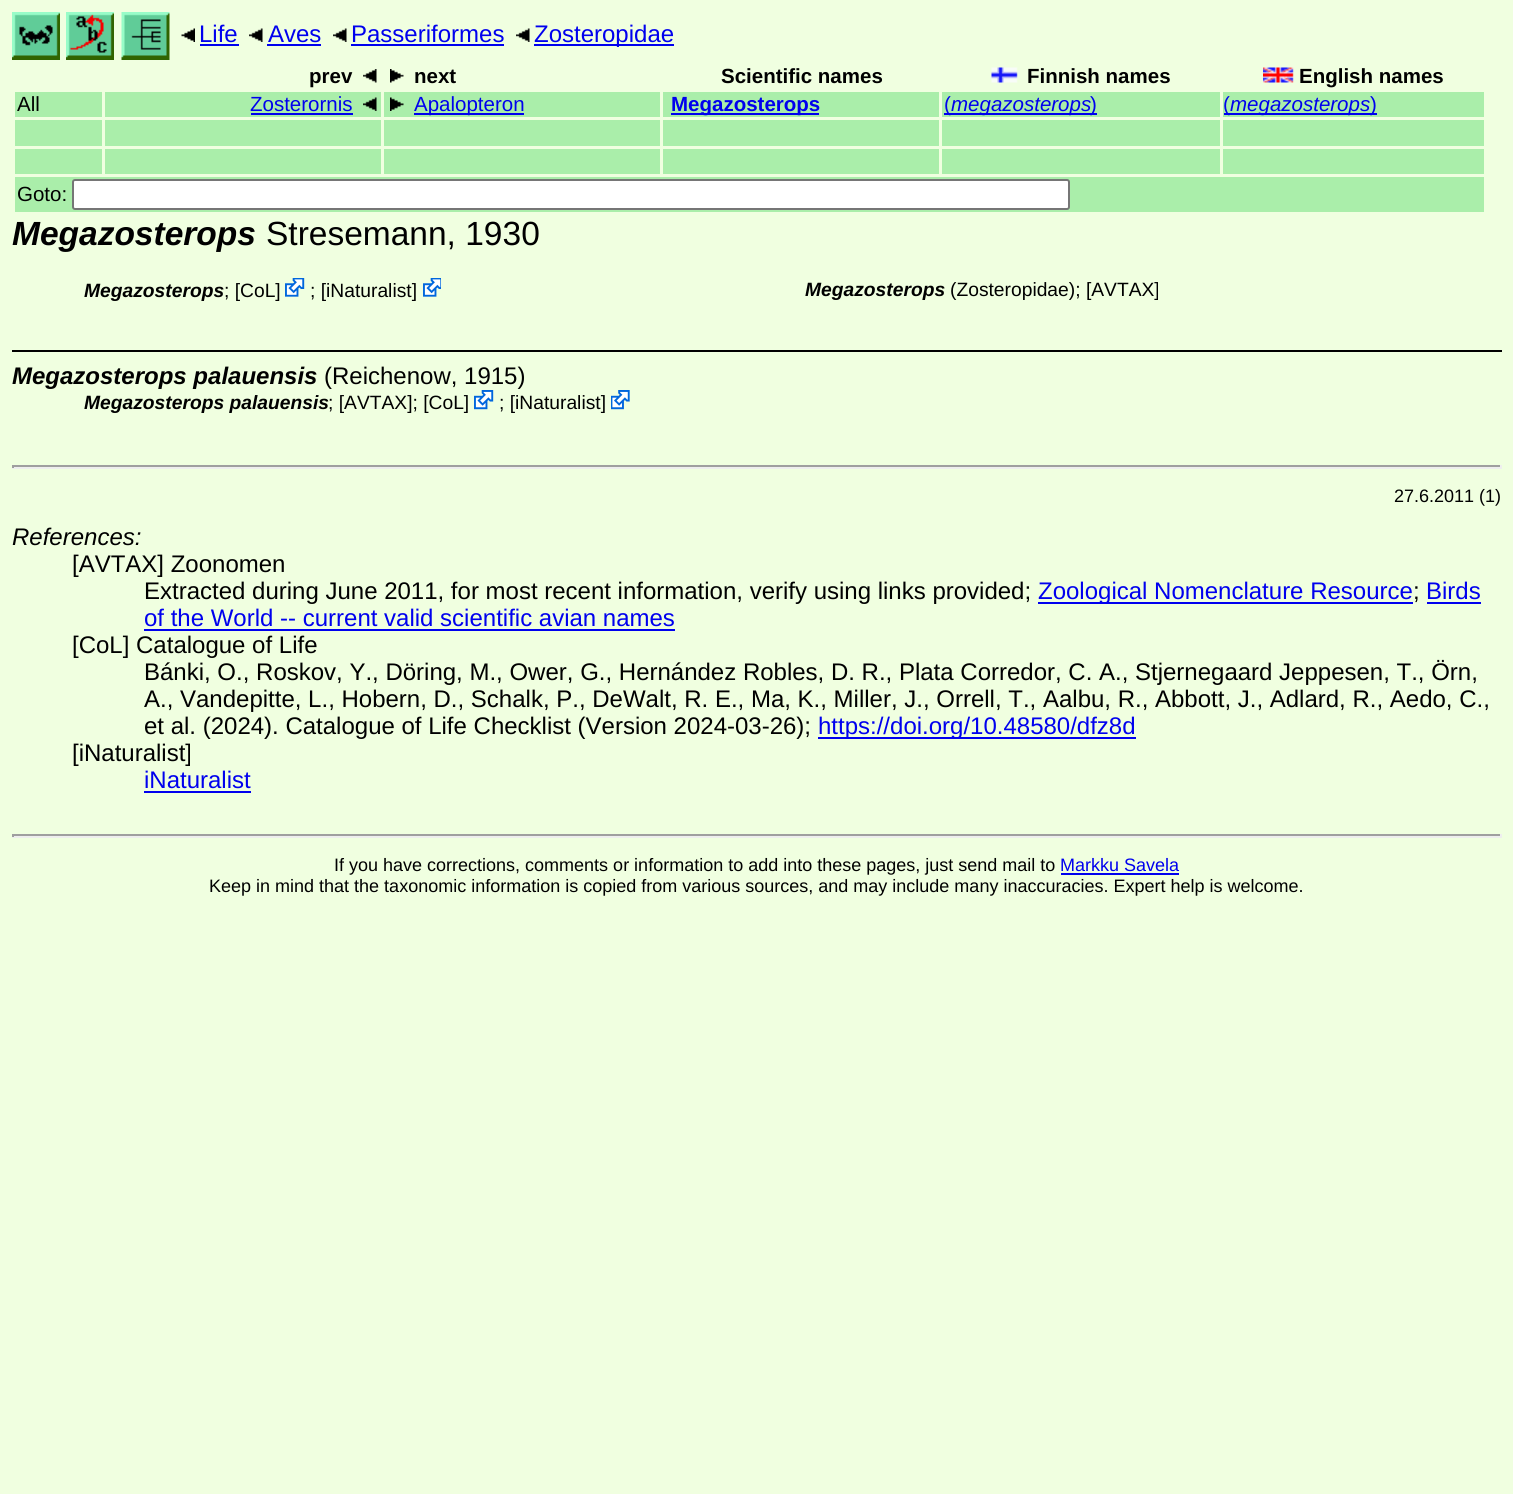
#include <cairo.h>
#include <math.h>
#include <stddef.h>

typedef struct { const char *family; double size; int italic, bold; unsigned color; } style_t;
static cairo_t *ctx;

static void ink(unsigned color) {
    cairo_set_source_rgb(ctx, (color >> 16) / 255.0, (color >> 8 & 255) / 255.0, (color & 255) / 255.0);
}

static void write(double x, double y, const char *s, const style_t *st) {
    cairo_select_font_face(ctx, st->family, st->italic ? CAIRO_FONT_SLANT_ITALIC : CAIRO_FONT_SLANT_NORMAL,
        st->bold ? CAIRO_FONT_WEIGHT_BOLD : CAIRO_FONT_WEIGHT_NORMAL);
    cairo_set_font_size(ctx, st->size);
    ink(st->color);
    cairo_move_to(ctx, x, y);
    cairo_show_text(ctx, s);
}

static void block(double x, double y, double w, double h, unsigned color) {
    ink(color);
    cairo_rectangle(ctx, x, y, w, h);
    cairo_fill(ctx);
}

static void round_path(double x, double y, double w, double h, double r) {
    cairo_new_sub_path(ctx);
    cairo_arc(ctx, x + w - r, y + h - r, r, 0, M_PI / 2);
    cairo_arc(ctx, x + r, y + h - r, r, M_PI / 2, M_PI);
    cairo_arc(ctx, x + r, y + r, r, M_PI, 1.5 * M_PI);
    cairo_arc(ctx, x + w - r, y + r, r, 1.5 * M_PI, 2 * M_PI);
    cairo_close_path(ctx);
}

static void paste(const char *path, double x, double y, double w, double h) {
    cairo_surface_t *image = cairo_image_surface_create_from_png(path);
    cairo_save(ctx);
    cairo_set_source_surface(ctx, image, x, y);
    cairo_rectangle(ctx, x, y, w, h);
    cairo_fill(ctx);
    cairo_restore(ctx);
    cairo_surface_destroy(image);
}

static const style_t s1 = {"Liberation Sans", 24, 0, 0, 0x0000ee};
static const style_t s2 = {"Liberation Sans", 20.5, 0, 1, 0x000000};
static const style_t s3 = {"Liberation Sans", 20.5, 0, 0, 0x000000};
static const style_t s4 = {"Liberation Sans", 20.5, 0, 0, 0x0000ee};
static const style_t s5 = {"Liberation Sans", 20.5, 0, 1, 0x0000ee};
static const style_t s6 = {"Liberation Sans", 20.5, 1, 0, 0x0000ee};
static const style_t s7 = {"Liberation Sans", 33.5, 1, 1, 0x000000};
static const style_t s8 = {"Liberation Sans", 33.5, 0, 0, 0x000000};
static const style_t s9 = {"Liberation Sans", 19.25, 1, 1, 0x000000};
static const style_t s10 = {"Liberation Sans", 19.25, 0, 0, 0x000000};
static const style_t s11 = {"Liberation Sans", 24, 1, 1, 0x000000};
static const style_t s12 = {"Liberation Sans", 24, 0, 0, 0x000000};
static const style_t s13 = {"Liberation Sans", 18, 0, 0, 0x000000};
static const style_t s14 = {"Liberation Sans", 24, 1, 0, 0x000000};
static const style_t s15 = {"Liberation Sans", 18, 0, 0, 0x0000ee};

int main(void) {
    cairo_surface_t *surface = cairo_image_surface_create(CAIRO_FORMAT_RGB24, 1513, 1494);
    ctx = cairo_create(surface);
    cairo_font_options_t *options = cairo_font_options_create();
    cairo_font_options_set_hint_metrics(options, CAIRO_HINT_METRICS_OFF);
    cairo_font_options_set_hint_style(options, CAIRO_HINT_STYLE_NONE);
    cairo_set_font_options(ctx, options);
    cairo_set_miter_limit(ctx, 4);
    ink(0xf0ffe0);
    cairo_paint(ctx);
    paste("pic1.png", 12, 12, 48, 48);
    paste("pic2.png", 66, 12, 48, 48);
    paste("pic3.png", 121, 12, 49, 48);
    paste("pic4.png", 181, 28, 14, 14);
    write(199, 42, "Life", &s1);
    block(200, 44, 39, 2, 0x0000ee);
    paste("pic5.png", 249, 28, 14, 14);
    write(268, 42, "Aves", &s1);
    block(267, 44, 54, 2, 0x0000ee);
    paste("pic5.png", 333, 28, 14, 14);
    write(351, 42, "Passeriformes", &s1);
    block(351, 44, 153, 2, 0x0000ee);
    paste("pic5.png", 516, 28, 14, 14);
    block(534, 44, 140, 2, 0x0000ee);
    write(534, 42, "Zosteropidae", &s1);
    write(309, 83, "prev", &s2);
    paste("pic6.png", 363, 69, 14, 14);
    paste("pic7.png", 390, 69, 14, 14);
    write(414, 83, "next", &s2);
    write(721, 83, "Scientific names", &s2);
    paste("pic8.png", 991, 67, 27, 16);
    write(1027, 83, "Finnish names", &s2);
    paste("pic9.png", 1263, 67, 31, 16);
    write(1299, 83, "English names", &s2);
    block(15, 92, 87, 25, 0xaaeeaa);
    write(17, 111, "All", &s3);
    block(105, 92, 276, 25, 0xaaeeaa);
    write(250, 111, "Zosterornis", &s4);
    block(251, 113, 102, 2, 0x0000ee);
    paste("pic10.png", 363, 97, 14, 14);
    block(384, 92, 276, 25, 0xaaeeaa);
    paste("pic11.png", 390, 97, 14, 14);
    block(414, 113, 110, 2, 0x0000ee);
    write(414, 111, "Apalopteron", &s4);
    block(663, 92, 276, 25, 0xaaeeaa);
    block(671, 113, 148, 2, 0x0000ee);
    write(671, 111, "Megazosterops", &s5);
    block(942, 92, 278, 25, 0xaaeeaa);
    block(944, 113, 153, 2, 0x0000ee);
    write(944, 111, "(", &s4);
    write(951, 111, "megazosterops", &s6);
    write(1090, 111, ")", &s4);
    block(1223, 92, 261, 25, 0xaaeeaa);
    block(1224, 113, 153, 2, 0x0000ee);
    write(1223, 111, "(", &s4);
    write(1230, 111, "megazosterops", &s6);
    write(1370, 111, ")", &s4);
    block(15, 120, 87, 26, 0xaaeeaa);
    block(105, 120, 276, 26, 0xaaeeaa);
    block(384, 120, 276, 26, 0xaaeeaa);
    block(663, 120, 276, 26, 0xaaeeaa);
    block(942, 120, 278, 26, 0xaaeeaa);
    block(1223, 120, 261, 26, 0xaaeeaa);
    block(15, 149, 87, 25, 0xaaeeaa);
    block(105, 149, 276, 25, 0xaaeeaa);
    block(384, 149, 276, 25, 0xaaeeaa);
    block(663, 149, 276, 25, 0xaaeeaa);
    block(942, 149, 278, 25, 0xaaeeaa);
    block(1223, 149, 261, 25, 0xaaeeaa);
    block(15, 177, 1469, 35, 0xaaeeaa);
    write(17, 201, "Goto:", &s3);
    ink(0xffffff);
    round_path(73, 180, 996, 29, 2);
    cairo_fill_preserve(ctx);
    ink(0x767676);
    cairo_stroke(ctx);
    write(12, 245, "Megazosterops", &s7);
    write(266, 245, "Stresemann, 1930", &s8);
    write(84, 297, "Megazosterops", &s9);
    write(224, 297, "; [CoL]", &s10);
    paste("pic12.png", 285, 278, 20, 19);
    write(310, 297, "; [iNaturalist]", &s10);
    paste("pic13.png", 423, 278, 18, 19);
    write(805, 296, "Megazosterops", &s9);
    write(950, 296, "(Zosteropidae); [AVTAX]", &s10);
    block(12, 350, 1490, 2, 0x000000);
    write(12, 384, "Megazosterops palauensis", &s11);
    write(324, 384, "(Reichenow, 1915)", &s12);
    write(84, 409, "Megazosterops palauensis", &s9);
    write(328, 409, "; [AVTAX]; [CoL]", &s10);
    paste("pic14.png", 474, 390, 20, 20);
    write(499, 409, "; [iNaturalist]", &s10);
    paste("pic15.png", 611, 390, 19, 20);
    block(12, 465, 1490, 2, 0x9f9f9f);
    block(1500, 465, 2, 3, 0xeeeeee);
    block(12, 467, 1490, 2, 0xeeeeee);
    block(12, 465, 2, 3, 0x9f9f9f);
    write(1394, 502, "27.6.2011 (1)", &s13);
    write(12, 545, "References:", &s14);
    write(72, 572, "[AVTAX] Zoonomen", &s12);
    write(144, 599, "Extracted during June 2011, for most recent information, verify using links provided;", &s12);
    block(1038, 602, 375, 2, 0x0000ee);
    write(1038, 599, "Zoological Nomenclature Resource", &s1);
    write(1413, 599, ";", &s12);
    write(1426, 599, "Birds", &s1);
    block(1427, 602, 54, 2, 0x0000ee);
    write(144, 626, "of the World -- current valid scientific avian names", &s1);
    block(144, 629, 531, 2, 0x0000ee);
    write(72, 653, "[CoL] Catalogue of Life", &s12);
    write(144, 680, "Bánki, O., Roskov, Y., Döring, M., Ower, G., Hernández Robles, D. R., Plata Corredor, C. A., Stjernegaard Jeppesen, T., Örn,", &s12);
    write(144, 707, "A., Vandepitte, L., Hobern, D., Schalk, P., DeWalt, R. E., Ma, K., Miller, J., Orrell, T., Aalbu, R., Abbott, J., Adlard, R., Aedo, C.,", &s12);
    write(144, 734, "et al. (2024). Catalogue of Life Checklist (Version 2024-03-26);", &s12);
    block(818, 737, 318, 2, 0x0000ee);
    write(818, 734, "https://doi.org/10.48580/dfz8d", &s1);
    write(72, 761, "[iNaturalist]", &s12);
    write(144, 788, "iNaturalist", &s1);
    block(144, 791, 107, 2, 0x0000ee);
    block(12, 834, 1490, 2, 0x9f9f9f);
    block(1500, 834, 2, 3, 0xeeeeee);
    block(12, 836, 1490, 2, 0xeeeeee);
    block(12, 834, 2, 3, 0x9f9f9f);
    write(334, 871, "If you have corrections, comments or information to add into these pages, just send mail to", &s13);
    write(1060, 871, "Markku Savela", &s15);
    block(1061, 873, 118, 2, 0x0000ee);
    write(209, 892, "Keep in mind that the taxonomic information is copied from various sources, and may include many inaccuracies. Expert help is welcome.", &s13);
    cairo_surface_write_to_png(surface, "screenshot.png");
    cairo_font_options_destroy(options);
    cairo_destroy(ctx);
    cairo_surface_destroy(surface);
    return 0;
}
